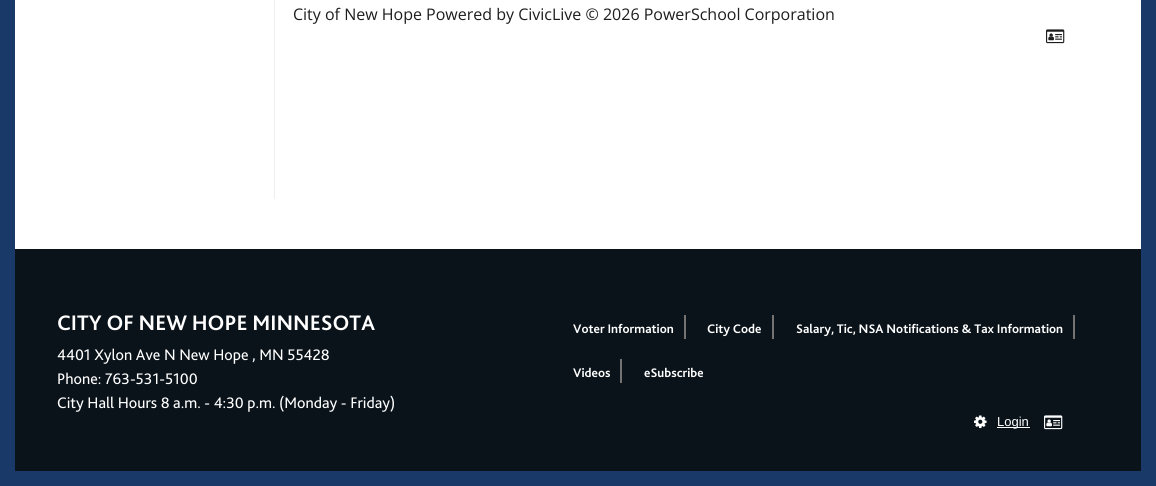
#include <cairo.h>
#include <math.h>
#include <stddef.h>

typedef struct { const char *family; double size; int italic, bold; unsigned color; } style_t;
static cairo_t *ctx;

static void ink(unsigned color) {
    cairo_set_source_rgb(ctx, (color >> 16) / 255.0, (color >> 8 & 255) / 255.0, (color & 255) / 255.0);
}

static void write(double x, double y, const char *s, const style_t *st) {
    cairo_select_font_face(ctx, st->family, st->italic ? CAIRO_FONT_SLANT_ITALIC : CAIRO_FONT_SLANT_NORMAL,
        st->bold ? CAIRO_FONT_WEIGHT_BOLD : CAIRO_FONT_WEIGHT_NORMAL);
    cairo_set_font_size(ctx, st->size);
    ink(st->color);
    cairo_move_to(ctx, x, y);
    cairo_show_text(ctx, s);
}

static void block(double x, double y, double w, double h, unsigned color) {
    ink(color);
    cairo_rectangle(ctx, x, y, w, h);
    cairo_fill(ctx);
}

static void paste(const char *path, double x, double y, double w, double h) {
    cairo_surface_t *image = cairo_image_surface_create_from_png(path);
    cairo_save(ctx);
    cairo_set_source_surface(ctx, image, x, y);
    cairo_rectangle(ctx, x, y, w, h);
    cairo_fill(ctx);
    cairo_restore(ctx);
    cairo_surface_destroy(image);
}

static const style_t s1 = {"Open Sans", 16, 0, 0, 0x1d1d1d};
static const style_t s2 = {"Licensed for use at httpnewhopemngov", 22, 0, 1, 0xffffff};
static const style_t s3 = {"Licensed for use at httpnewhopemngov", 16, 0, 0, 0xffffff};
static const style_t s4 = {"Licensed for use at httpnewhopemngov", 13, 0, 1, 0xffffff};
static const style_t s5 = {"Liberation Sans", 13, 0, 0, 0xffffff};

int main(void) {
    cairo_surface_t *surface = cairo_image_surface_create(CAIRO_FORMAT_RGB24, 1156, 486);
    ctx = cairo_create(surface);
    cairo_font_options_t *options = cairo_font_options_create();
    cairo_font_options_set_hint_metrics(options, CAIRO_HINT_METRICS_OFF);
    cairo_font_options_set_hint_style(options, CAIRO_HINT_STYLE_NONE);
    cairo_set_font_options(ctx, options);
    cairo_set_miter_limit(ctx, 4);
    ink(0xffffff);
    cairo_paint(ctx);
    cairo_rectangle(ctx, 7.5, -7.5, 1141, 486);
    ink(0x193968);
    cairo_set_line_width(ctx, 15);
    cairo_stroke(ctx);
    block(274, 0, 1, 199, 0xeeeeee);
    write(293, 20, "City of New Hope Powered by CivicLive © 2026 PowerSchool Corporation", &s1);
    paste("pic1.png", 1046, 29, 19, 15);
    block(15, 249, 1126, 222, 0x0a131a);
    write(57, 330, "CITY OF NEW HOPE MINNESOTA", &s2);
    write(57, 360, "4401 Xylon Ave N New Hope , MN 55428", &s3);
    write(57, 384, "Phone: 763-531-5100", &s3);
    write(57, 408, "City Hall Hours 8 a.m. - 4:30 p.m. (Monday - Friday)", &s3);
    write(573, 333, "Voter Information", &s4);
    block(684, 315, 2, 24, 0x757272);
    write(707, 333, "City Code", &s4);
    block(772, 315, 2, 24, 0x757272);
    write(796, 333, "Salary, Tic, NSA Notifications & Tax Information", &s4);
    block(1073, 315, 2, 24, 0x757272);
    write(573, 377, "Videos", &s4);
    block(620, 359, 2, 24, 0x757272);
    write(644, 377, "eSubscribe", &s4);
    paste("pic2.png", 974, 415, 13, 14);
    block(997, 427, 33, 1, 0xffffff);
    write(997, 426, "Login", &s5);
    paste("pic3.png", 1044, 415, 19, 15);
    cairo_surface_write_to_png(surface, "screenshot.png");
    cairo_font_options_destroy(options);
    cairo_destroy(ctx);
    cairo_surface_destroy(surface);
    return 0;
}
